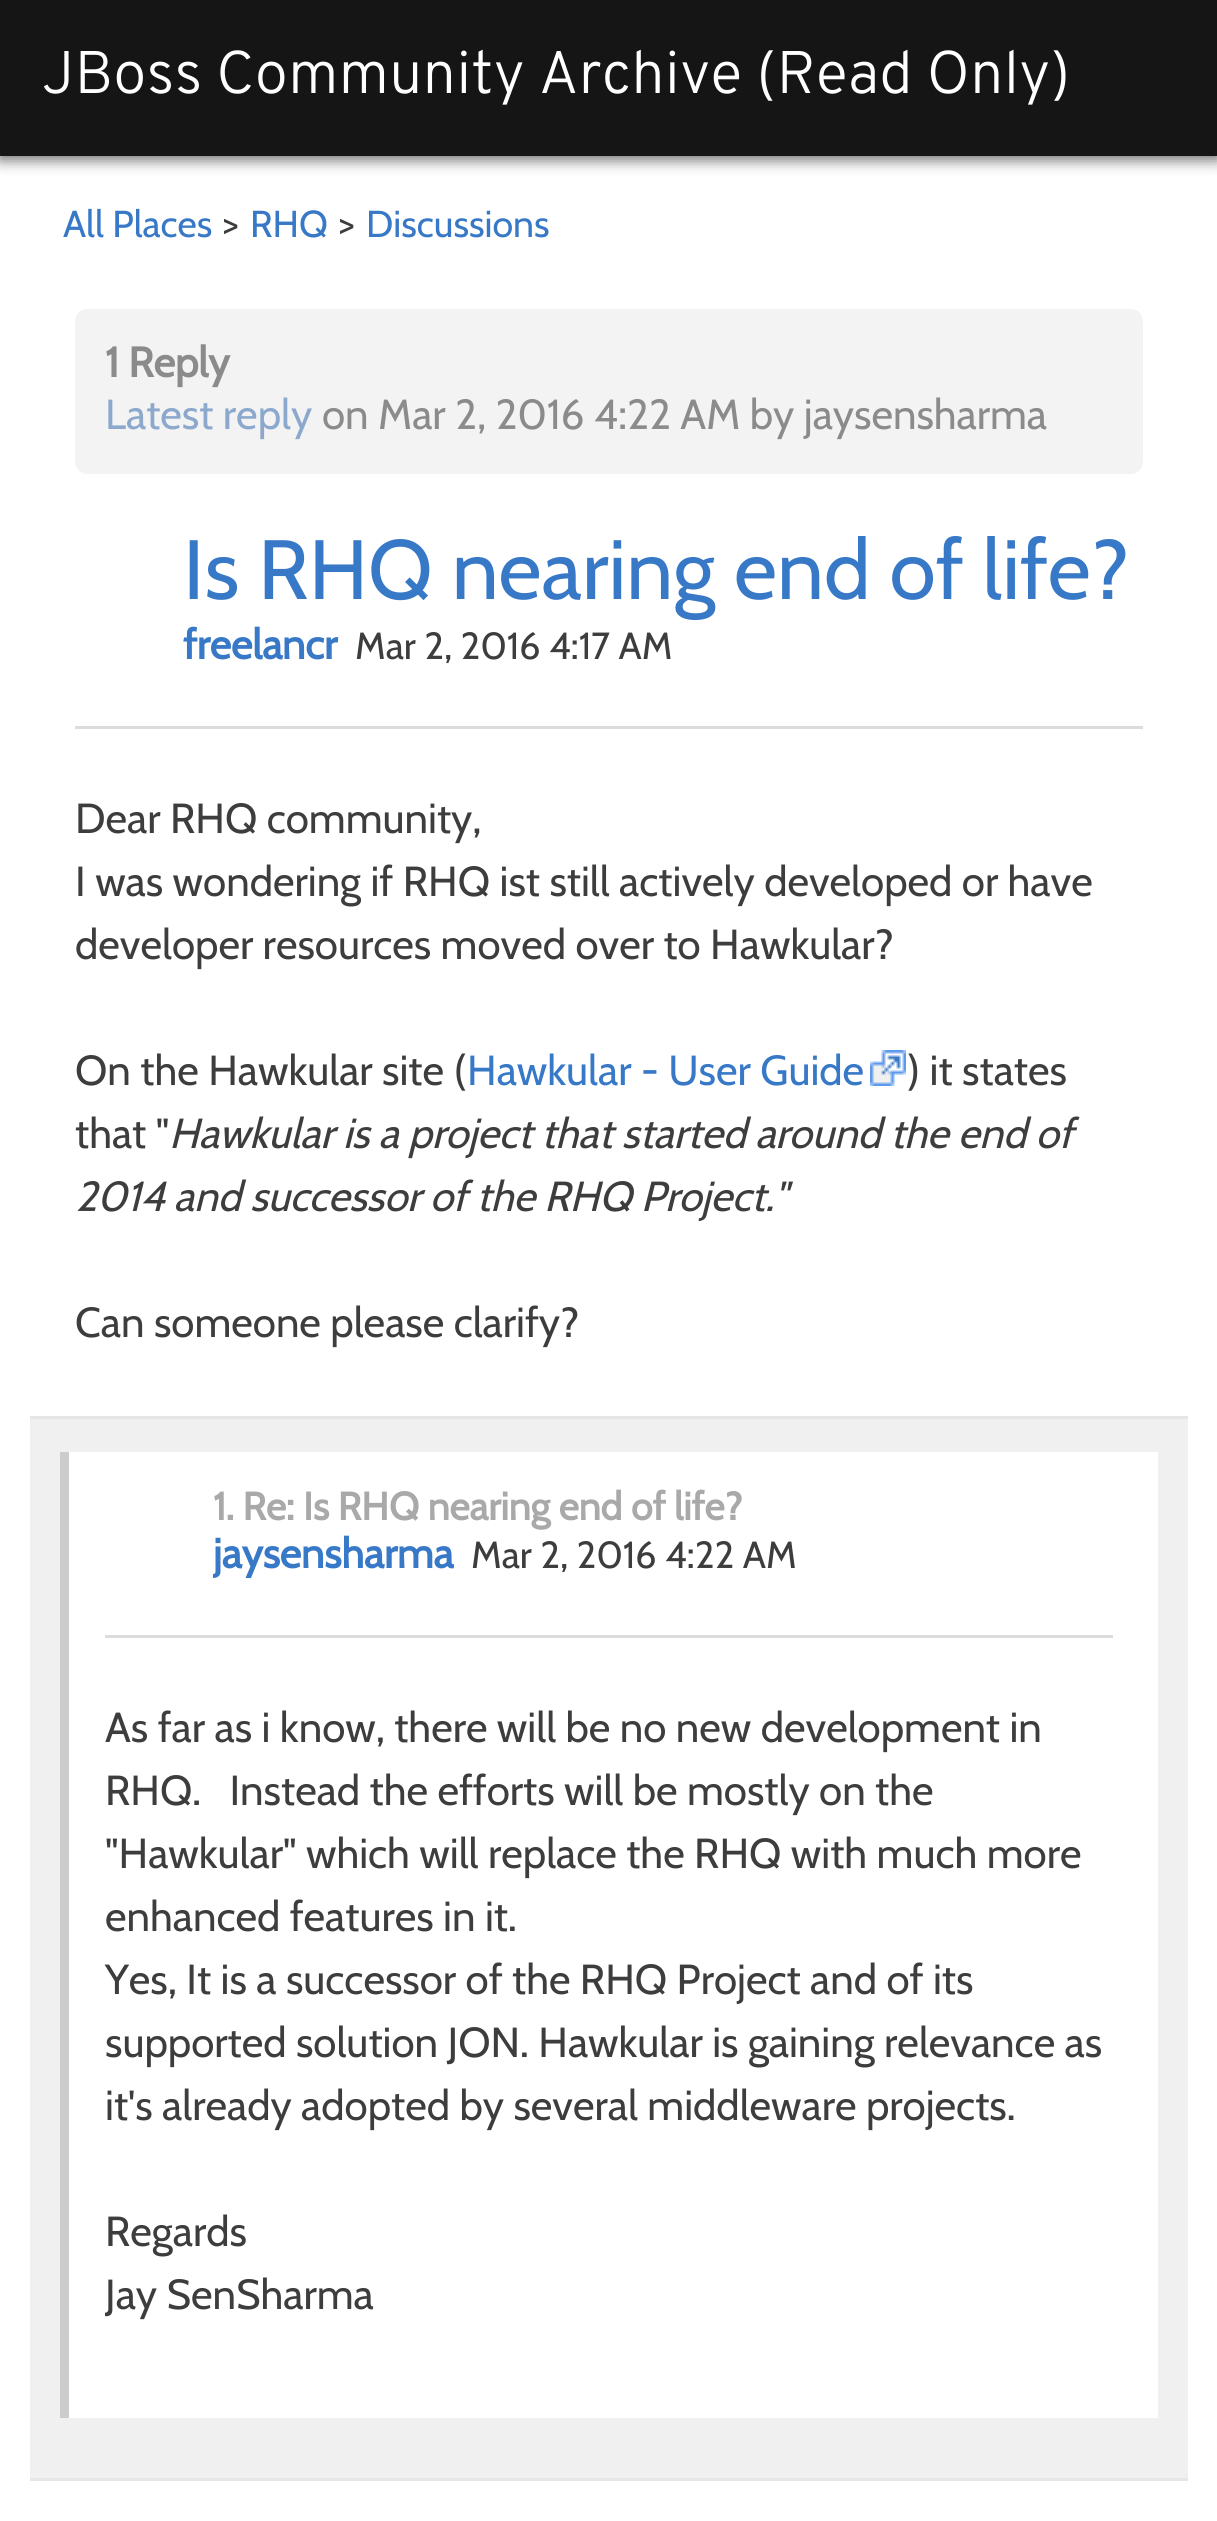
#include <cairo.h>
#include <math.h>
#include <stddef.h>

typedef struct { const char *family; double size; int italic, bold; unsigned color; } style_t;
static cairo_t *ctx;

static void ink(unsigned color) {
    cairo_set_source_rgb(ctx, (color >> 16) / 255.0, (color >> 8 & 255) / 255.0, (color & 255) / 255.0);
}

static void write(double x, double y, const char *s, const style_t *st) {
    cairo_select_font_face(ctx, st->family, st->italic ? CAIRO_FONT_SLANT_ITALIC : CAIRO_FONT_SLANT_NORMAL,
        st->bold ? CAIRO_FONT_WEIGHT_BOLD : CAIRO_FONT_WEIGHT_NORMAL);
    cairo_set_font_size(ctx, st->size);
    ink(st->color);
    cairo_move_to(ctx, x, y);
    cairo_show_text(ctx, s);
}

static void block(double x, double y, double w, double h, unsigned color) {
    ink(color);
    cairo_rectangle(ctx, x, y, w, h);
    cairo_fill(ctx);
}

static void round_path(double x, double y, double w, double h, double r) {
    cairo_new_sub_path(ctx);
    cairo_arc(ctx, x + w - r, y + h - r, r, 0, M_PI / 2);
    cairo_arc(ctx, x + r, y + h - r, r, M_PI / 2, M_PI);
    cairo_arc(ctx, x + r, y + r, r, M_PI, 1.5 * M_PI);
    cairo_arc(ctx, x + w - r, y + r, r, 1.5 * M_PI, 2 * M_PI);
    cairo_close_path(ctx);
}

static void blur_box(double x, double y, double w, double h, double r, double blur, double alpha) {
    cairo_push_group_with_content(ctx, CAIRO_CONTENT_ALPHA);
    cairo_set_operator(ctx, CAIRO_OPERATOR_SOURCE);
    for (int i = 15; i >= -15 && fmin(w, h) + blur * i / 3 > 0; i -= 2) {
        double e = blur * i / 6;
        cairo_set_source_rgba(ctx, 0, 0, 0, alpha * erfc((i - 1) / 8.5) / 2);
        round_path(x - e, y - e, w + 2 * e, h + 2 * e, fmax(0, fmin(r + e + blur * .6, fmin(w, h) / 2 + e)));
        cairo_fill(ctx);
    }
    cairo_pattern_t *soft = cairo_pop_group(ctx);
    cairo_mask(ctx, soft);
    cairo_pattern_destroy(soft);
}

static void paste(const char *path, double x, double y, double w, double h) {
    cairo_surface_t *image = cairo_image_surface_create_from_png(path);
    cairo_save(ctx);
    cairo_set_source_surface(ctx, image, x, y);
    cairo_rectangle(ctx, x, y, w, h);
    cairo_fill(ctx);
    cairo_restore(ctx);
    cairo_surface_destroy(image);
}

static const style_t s1 = {"Overpass Light", 60, 0, 0, 0xffffff};
static const style_t s2 = {"Cabin", 37.5, 0, 0, 0x3778c7};
static const style_t s3 = {"Cabin", 37.5, 0, 0, 0x3d3d3d};
static const style_t s4 = {"Cabin", 42, 0, 1, 0x8b8b8b};
static const style_t s5 = {"Cabin", 42, 0, 0, 0x8ca9cd};
static const style_t s6 = {"Cabin", 42, 0, 0, 0x8b8b8b};
static const style_t s7 = {"Cabin", 84, 0, 0, 0x3778c7};
static const style_t s8 = {"Cabin", 41.5, 0, 1, 0x3778c7};
static const style_t s9 = {"Cabin", 37.75, 0, 0, 0x3d3d3d};
static const style_t s10 = {"Cabin", 42, 0, 0, 0x3d3d3d};
static const style_t s11 = {"Cabin", 42, 0, 0, 0x3778c7};
static const style_t s12 = {"Cabin", 42, 1, 0, 0x3d3d3d};
static const style_t s13 = {"Cabin", 39, 0, 1, 0xa9a9a9};

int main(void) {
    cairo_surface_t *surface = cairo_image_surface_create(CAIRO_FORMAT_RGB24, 1217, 2521);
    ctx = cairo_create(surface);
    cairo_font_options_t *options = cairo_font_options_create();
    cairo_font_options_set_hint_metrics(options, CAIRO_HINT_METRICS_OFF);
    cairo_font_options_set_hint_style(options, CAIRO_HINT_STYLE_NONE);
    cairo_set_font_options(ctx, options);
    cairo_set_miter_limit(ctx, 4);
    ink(0xffffff);
    cairo_paint(ctx);
    ink(0x000000);
    blur_box(0, 3, 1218, 156, 0, 7.5, 0.35);
    blur_box(0, 3, 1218, 156, 0, 7.5, 0.35);
    block(0, 0, 1217, 156, 0x151515);
    write(42, 93, "JBoss Community Archive (Read Only)", &s1);
    write(63, 237, "All Places", &s2);
    write(223, 237, ">", &s3);
    write(250, 237, "RHQ", &s2);
    write(339, 237, ">", &s3);
    write(366, 237, "Discussions", &s2);
    ink(0xf3f3f3);
    round_path(75, 309, 1068, 165, 12);
    cairo_fill(ctx);
    write(105, 377, "1 Reply", &s4);
    write(105, 429, "Latest reply", &s5);
    write(322, 429, "on Mar 2, 2016 4:22 AM by jaysensharma", &s6);
    block(75, 726, 1068, 3, 0xdcdcdc);
    write(183, 599, "Is RHQ nearing end of life?", &s7);
    write(183, 659, "freelancr", &s8);
    write(355, 659, "Mar 2, 2016 4:17 AM", &s9);
    write(75, 833, "Dear RHQ community,", &s10);
    write(75, 896, "I was wondering if RHQ ist still actively developed or have", &s10);
    write(75, 959, "developer resources moved over to Hawkular?", &s10);
    write(75, 1085, "On the Hawkular site (", &s10);
    write(467, 1085, "Hawkular - User Guide", &s11);
    paste("pic1.png", 870, 1050, 36, 36);
    write(907, 1085, ") it states", &s10);
    write(75, 1148, "that \"", &s10);
    write(169, 1148, "Hawkular is a project that started around the end of", &s12);
    write(75, 1211, "2014 and successor of the RHQ Project.\"", &s12);
    write(75, 1337, "Can someone please clarify?", &s10);
    block(30, 1419, 1158, 1059, 0xf0f0f0);
    block(30, 1416, 1158, 3, 0xe6e6e6);
    block(30, 2478, 1158, 3, 0xe6e6e6);
    block(69, 1452, 1089, 966, 0xffffff);
    block(60, 1452, 9, 966, 0xcccccc);
    block(105, 1635, 1008, 3, 0xdcdcdc);
    write(213, 1520, "1. Re: Is RHQ nearing end of life?", &s13);
    cairo_save(ctx);
    cairo_rectangle(ctx, 213, 1530, 855, 60);
    cairo_clip(ctx);
    write(213, 1568, "jaysensharma", &s8);
    cairo_restore(ctx);
    write(471, 1568, "Mar 2, 2016 4:22 AM", &s9);
    write(105, 1742, "As far as i know, there will be no new development in", &s10);
    write(105, 1805, "RHQ.   Instead the efforts will be mostly on the", &s10);
    write(105, 1868, "\"Hawkular\" which will replace the RHQ with much more", &s10);
    write(105, 1931, "enhanced features in it.", &s10);
    write(105, 1994, "Yes, It is a successor of the RHQ Project and of its", &s10);
    write(105, 2057, "supported solution JON. Hawkular is gaining relevance as", &s10);
    write(105, 2120, "it's already adopted by several middleware projects.", &s10);
    write(105, 2246, "Regards", &s10);
    cairo_save(ctx);
    cairo_rectangle(ctx, 105, 1698, 1008, 630);
    cairo_clip(ctx);
    write(105, 2309, "Jay SenSharma", &s10);
    cairo_restore(ctx);
    cairo_surface_write_to_png(surface, "screenshot.png");
    cairo_font_options_destroy(options);
    cairo_destroy(ctx);
    cairo_surface_destroy(surface);
    return 0;
}
